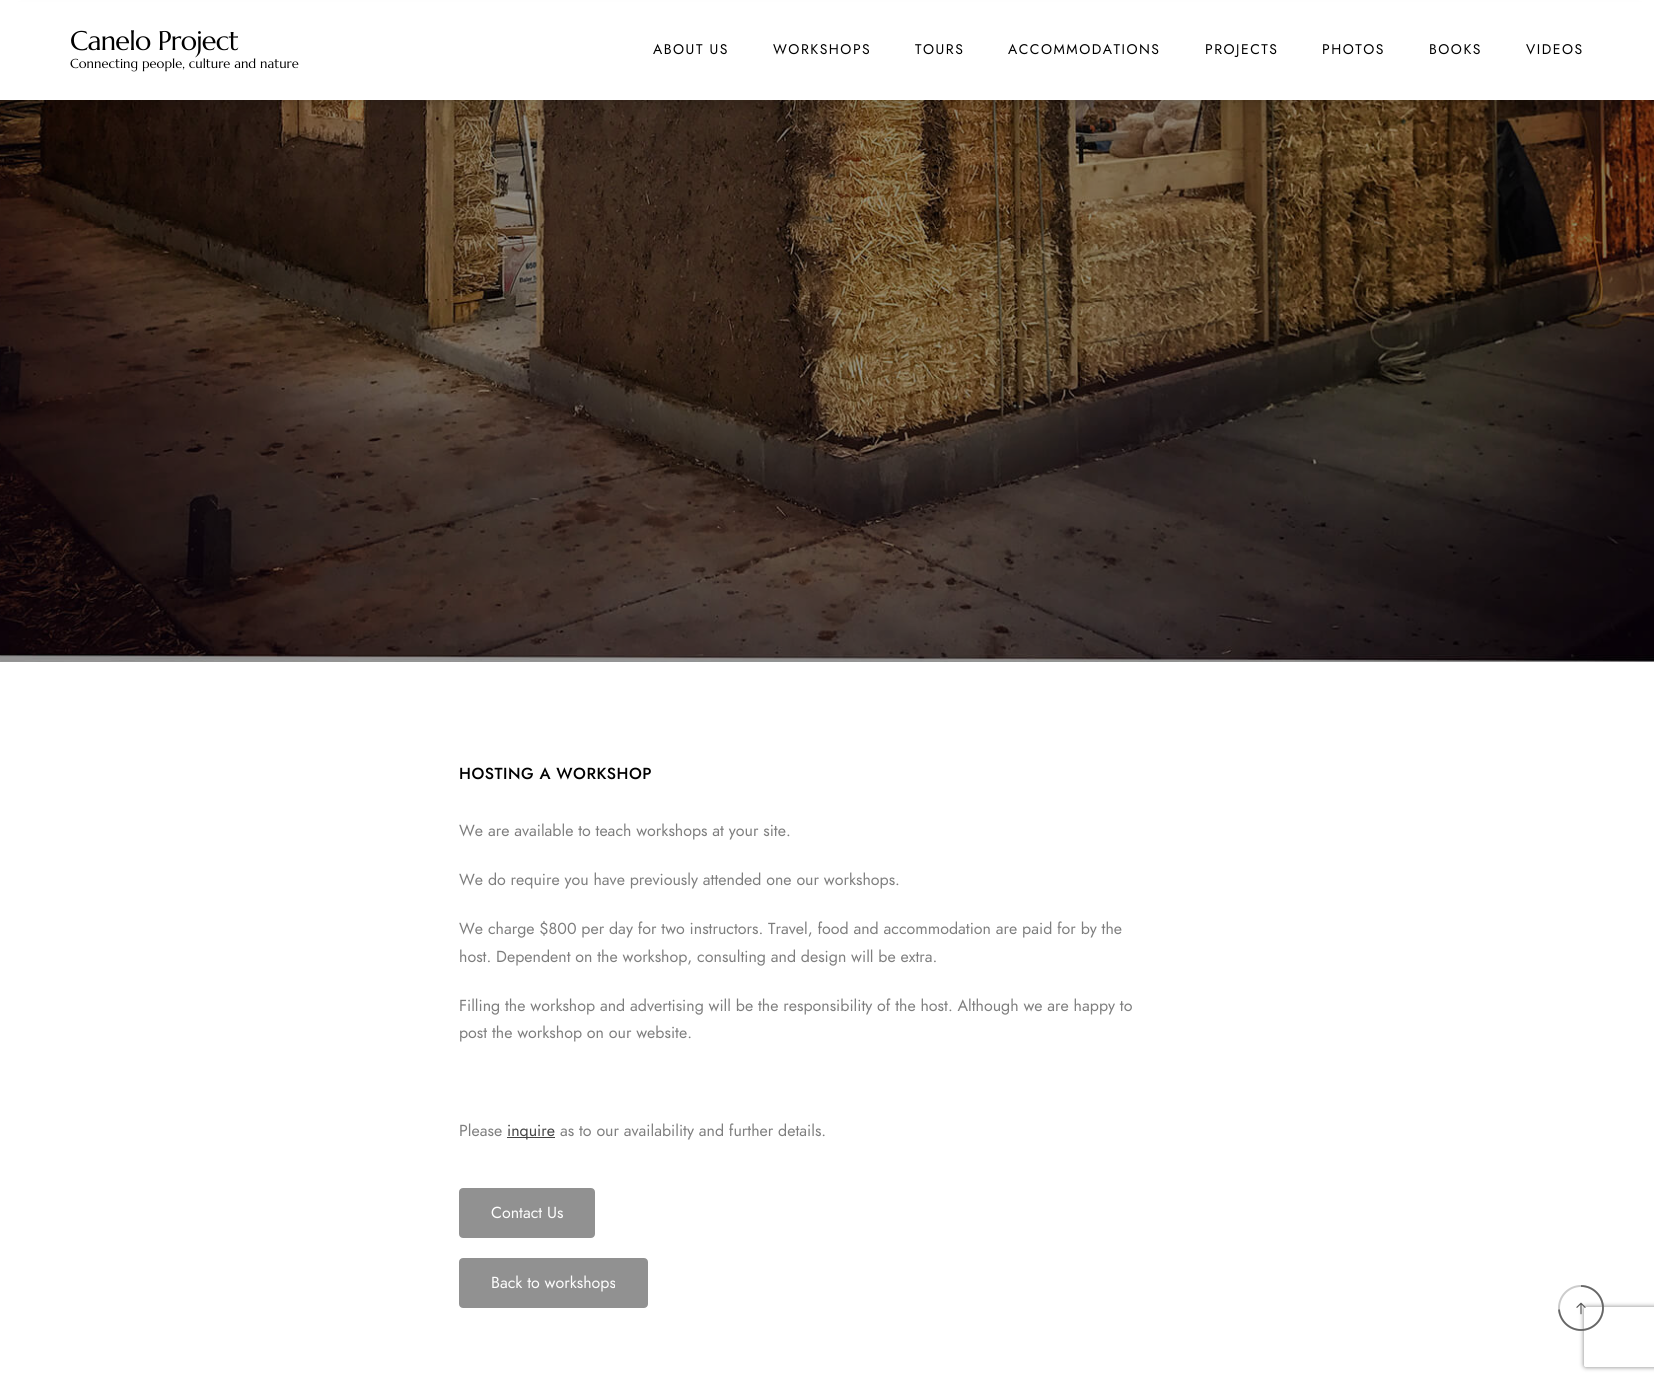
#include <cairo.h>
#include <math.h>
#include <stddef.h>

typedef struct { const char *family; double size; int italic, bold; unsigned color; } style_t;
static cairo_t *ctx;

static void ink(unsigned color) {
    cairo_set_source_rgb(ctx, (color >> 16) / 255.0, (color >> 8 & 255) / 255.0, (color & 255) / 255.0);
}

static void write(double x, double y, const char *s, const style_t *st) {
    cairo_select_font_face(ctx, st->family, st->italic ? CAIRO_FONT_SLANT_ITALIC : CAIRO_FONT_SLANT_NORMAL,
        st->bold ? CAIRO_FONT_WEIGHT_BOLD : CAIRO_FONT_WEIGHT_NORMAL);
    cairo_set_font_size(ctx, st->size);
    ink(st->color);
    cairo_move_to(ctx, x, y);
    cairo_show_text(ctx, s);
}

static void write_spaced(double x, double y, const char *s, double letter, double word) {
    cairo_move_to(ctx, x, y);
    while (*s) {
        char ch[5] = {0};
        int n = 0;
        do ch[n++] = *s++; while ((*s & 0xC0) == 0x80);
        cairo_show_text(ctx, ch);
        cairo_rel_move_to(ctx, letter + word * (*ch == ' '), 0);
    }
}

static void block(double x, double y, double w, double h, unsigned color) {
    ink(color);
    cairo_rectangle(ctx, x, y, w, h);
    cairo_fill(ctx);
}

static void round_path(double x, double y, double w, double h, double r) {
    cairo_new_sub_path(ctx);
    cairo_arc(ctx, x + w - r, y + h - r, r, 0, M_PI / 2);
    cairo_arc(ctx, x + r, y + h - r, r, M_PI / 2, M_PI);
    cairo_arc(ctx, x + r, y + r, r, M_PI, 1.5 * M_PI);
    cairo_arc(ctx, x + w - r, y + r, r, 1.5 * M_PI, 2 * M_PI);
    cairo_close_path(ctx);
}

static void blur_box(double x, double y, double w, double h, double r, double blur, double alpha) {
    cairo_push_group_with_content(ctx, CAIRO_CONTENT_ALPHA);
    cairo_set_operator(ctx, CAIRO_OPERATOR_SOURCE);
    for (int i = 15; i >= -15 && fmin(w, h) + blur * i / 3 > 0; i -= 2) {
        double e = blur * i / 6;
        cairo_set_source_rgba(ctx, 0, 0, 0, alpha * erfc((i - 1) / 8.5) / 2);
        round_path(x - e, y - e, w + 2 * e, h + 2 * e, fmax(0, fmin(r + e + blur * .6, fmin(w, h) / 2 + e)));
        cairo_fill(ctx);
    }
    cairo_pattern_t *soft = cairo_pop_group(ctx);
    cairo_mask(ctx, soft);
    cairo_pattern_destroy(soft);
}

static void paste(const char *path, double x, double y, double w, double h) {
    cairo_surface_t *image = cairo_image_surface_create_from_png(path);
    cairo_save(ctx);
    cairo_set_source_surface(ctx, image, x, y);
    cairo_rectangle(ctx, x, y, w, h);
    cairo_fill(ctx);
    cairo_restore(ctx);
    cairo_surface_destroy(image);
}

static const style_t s1 = {"Marcellus", 13, 0, 0, 0x000000};
static const style_t s2 = {"Jost", 16, 0, 0, 0x7e7e7e};
static const style_t s3 = {"Jost", 16, 0, 0, 0x444444};
static const style_t s4 = {"Jost", 16, 0, 0, 0xffffff};

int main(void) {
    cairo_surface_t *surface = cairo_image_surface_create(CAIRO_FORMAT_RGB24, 1654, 1381);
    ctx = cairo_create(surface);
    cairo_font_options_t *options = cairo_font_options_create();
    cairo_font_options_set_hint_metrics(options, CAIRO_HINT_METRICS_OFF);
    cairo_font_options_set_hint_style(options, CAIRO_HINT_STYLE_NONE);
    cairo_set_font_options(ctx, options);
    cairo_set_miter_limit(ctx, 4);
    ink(0xffffff);
    cairo_paint(ctx);
    paste("pic1.png", 0, 100, 1654, 562);
    ink(0x000000);
    blur_box(28, 35, 1604, 50, 0, 15, 0.75);
    block(0, 2, 1654, 98, 0xffffff);
    cairo_select_font_face(ctx, "Marcellus", CAIRO_FONT_SLANT_NORMAL, CAIRO_FONT_WEIGHT_NORMAL);
    cairo_set_font_size(ctx, 27);
    ink(0x000000);
    write_spaced(70, 50, "Canelo Project", -0.75, 0);
    write(70, 68, "Connecting people, culture and nature", &s1);
    cairo_select_font_face(ctx, "Jost", CAIRO_FONT_SLANT_NORMAL, CAIRO_FONT_WEIGHT_NORMAL);
    cairo_set_font_size(ctx, 14);
    write_spaced(653, 54, "ABOUT US", 1.5, 0);
    write_spaced(773, 54, "WORKSHOPS", 1.5, 0);
    write_spaced(915, 54, "TOURS", 1.5, 0);
    write_spaced(1008, 54, "ACCOMMODATIONS", 1.5, 0);
    write_spaced(1205, 54, "PROJECTS", 1.5, 0);
    write_spaced(1322, 54, "PHOTOS", 1.5, 0);
    write_spaced(1429, 54, "BOOKS", 1.5, 0);
    write_spaced(1526, 54, "VIDEOS", 1.5, 0);
    cairo_select_font_face(ctx, "Jost Medium", CAIRO_FONT_SLANT_NORMAL, CAIRO_FONT_WEIGHT_NORMAL);
    cairo_set_font_size(ctx, 16);
    write_spaced(459, 779, "HOSTING A WORKSHOP", 0.5, 0);
    write(459, 836, "We are available to teach workshops at your site.", &s2);
    write(459, 885, "We do require you have previously attended one our workshops.", &s2);
    write(459, 934, "We charge $800 per day for two instructors. Travel, food and accommodation are paid for by the", &s2);
    write(459, 962, "host. Dependent on the workshop, consulting and design will be extra.", &s2);
    write(459, 1011, "Filling the workshop and advertising will be the responsibility of the host. Although we are happy to", &s2);
    write(459, 1038, "post the workshop on our website.", &s2);
    write(459, 1136, "Please", &s2);
    block(507, 1137, 48, 1, 0x444444);
    write(507, 1136, "inquire", &s3);
    write(560, 1136, "as to our availability and further details.", &s2);
    ink(0x919191);
    round_path(460, 1189, 134, 48, 3);
    cairo_fill_preserve(ctx);
    cairo_stroke(ctx);
    write(491, 1218, "Contact Us", &s4);
    ink(0x919191);
    round_path(460, 1259, 187, 48, 3);
    cairo_fill_preserve(ctx);
    cairo_stroke(ctx);
    write(491, 1288, "Back to workshops", &s4);
    cairo_save(ctx);
    cairo_set_fill_rule(ctx, CAIRO_FILL_RULE_EVEN_ODD);
    cairo_new_path(ctx);
    cairo_move_to(ctx, 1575, 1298);
    cairo_line_to(ctx, 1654, 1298);
    cairo_line_to(ctx, 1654, 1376);
    cairo_line_to(ctx, 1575, 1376);
    cairo_close_path(ctx);
    cairo_move_to(ctx, 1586, 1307);
    cairo_line_to(ctx, 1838, 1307);
    cairo_curve_to(ctx, 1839, 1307, 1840, 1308, 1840, 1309);
    cairo_line_to(ctx, 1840, 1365);
    cairo_curve_to(ctx, 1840, 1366, 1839, 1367, 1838, 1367);
    cairo_line_to(ctx, 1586, 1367);
    cairo_curve_to(ctx, 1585, 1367, 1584, 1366, 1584, 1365);
    cairo_line_to(ctx, 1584, 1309);
    cairo_curve_to(ctx, 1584, 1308, 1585, 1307, 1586, 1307);
    cairo_close_path(ctx);
    cairo_clip(ctx);
    ink(0x808080);
    blur_box(1584, 1307, 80, 60, 2, 2.5, 1);
    cairo_restore(ctx);
    cairo_arc(ctx, 1581, 1308, 22, 0, 2 * M_PI);
    cairo_set_source_rgba(ctx, 0, 0, 0, 0.2);
    cairo_stroke(ctx);
    cairo_new_path(ctx);
    cairo_move_to(ctx, 1581, 1286);
    cairo_curve_to(ctx, 1593, 1286, 1603, 1296, 1603, 1308);
    cairo_curve_to(ctx, 1603, 1320, 1593, 1330, 1581, 1330);
    cairo_curve_to(ctx, 1569.5, 1330, 1560, 1321, 1559, 1309.5);
    ink(0x666666);
    cairo_set_line_width(ctx, 1.8);
    cairo_stroke(ctx);
    paste("pic2.png", 1576, 1302, 10, 13);
    cairo_surface_write_to_png(surface, "screenshot.png");
    cairo_font_options_destroy(options);
    cairo_destroy(ctx);
    cairo_surface_destroy(surface);
    return 0;
}
